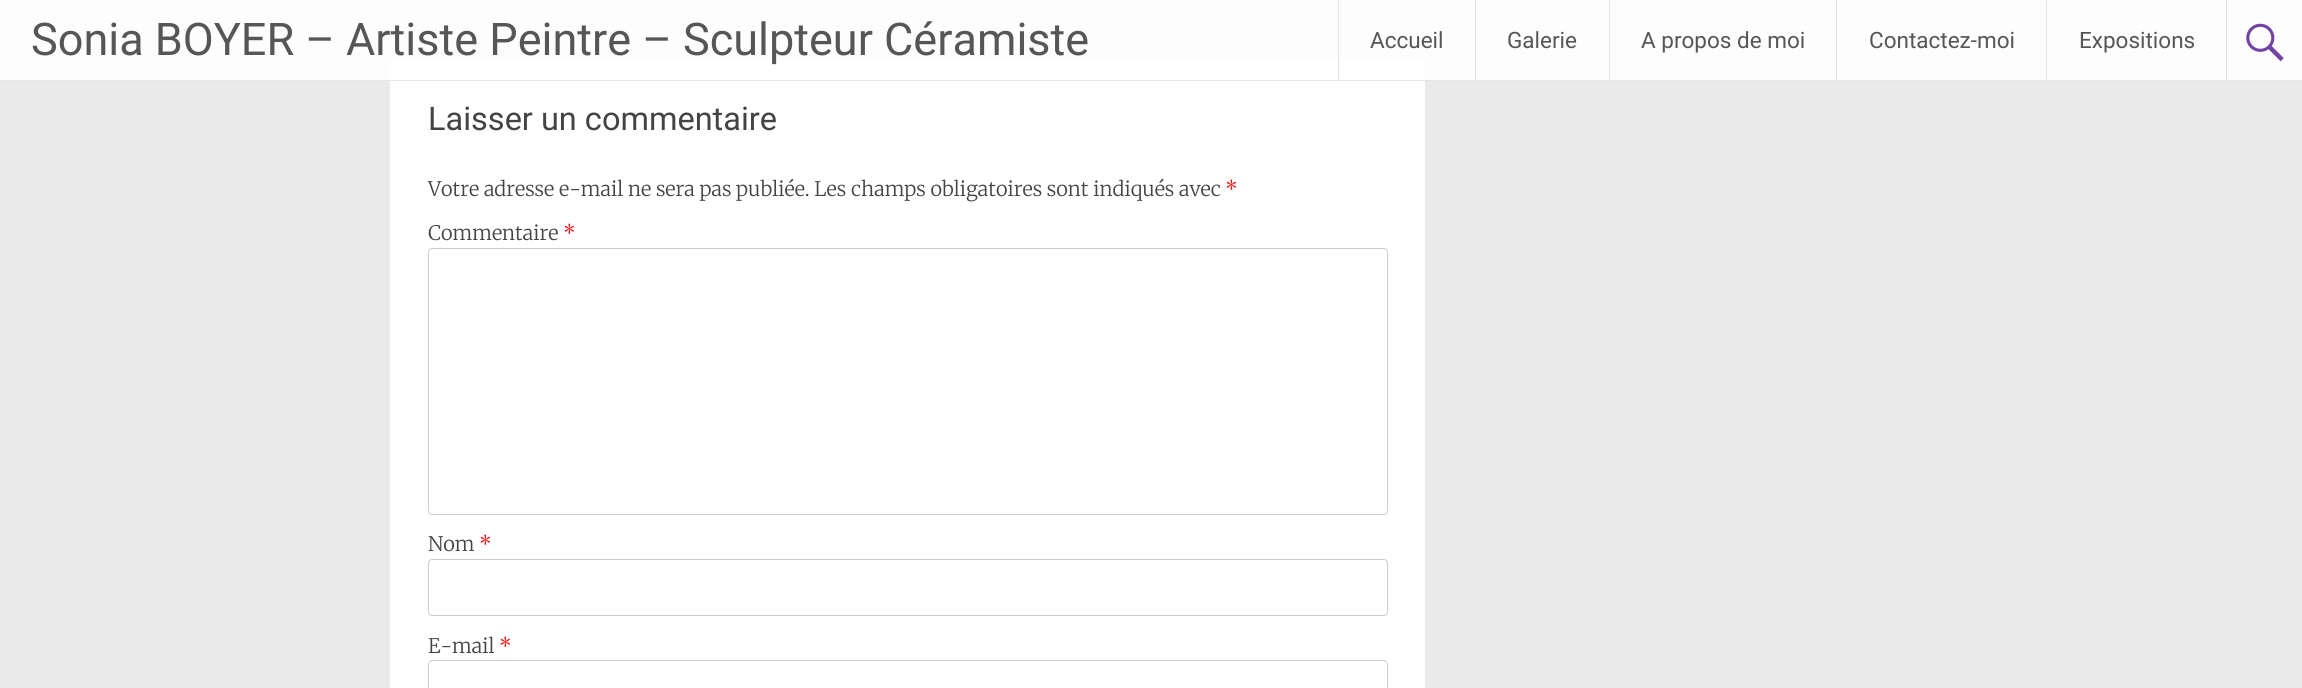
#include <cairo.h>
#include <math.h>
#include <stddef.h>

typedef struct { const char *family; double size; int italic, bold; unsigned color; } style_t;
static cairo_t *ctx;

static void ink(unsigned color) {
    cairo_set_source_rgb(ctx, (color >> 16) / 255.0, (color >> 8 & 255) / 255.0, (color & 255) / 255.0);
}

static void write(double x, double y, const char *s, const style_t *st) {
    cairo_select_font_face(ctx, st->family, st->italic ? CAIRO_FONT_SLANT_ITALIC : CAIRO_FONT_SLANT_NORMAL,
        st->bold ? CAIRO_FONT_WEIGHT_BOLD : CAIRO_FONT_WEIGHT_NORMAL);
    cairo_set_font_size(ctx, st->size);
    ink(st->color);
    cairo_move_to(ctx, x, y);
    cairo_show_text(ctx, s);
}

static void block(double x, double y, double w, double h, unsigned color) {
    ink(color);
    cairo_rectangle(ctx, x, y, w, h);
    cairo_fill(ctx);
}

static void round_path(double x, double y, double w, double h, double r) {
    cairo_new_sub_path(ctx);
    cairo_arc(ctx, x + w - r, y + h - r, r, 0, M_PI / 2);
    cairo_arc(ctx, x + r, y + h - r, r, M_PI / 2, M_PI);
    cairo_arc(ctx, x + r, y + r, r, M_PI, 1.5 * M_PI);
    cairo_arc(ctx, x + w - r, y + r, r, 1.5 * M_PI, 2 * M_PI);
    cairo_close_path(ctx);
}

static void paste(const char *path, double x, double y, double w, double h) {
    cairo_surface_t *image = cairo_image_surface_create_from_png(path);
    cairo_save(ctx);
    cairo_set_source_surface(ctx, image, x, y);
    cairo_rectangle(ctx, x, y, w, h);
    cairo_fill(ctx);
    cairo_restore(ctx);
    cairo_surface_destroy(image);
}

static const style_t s1 = {"Roboto", 45, 0, 0, 0x565656};
static const style_t s2 = {"Roboto", 22.5, 0, 0, 0x565656};
static const style_t s3 = {"Roboto", 32.5, 0, 0, 0x444444};
static const style_t s4 = {"Merriweather Light", 20, 0, 0, 0x444444};
static const style_t s5 = {"Merriweather Light", 20, 0, 0, 0xff0000};

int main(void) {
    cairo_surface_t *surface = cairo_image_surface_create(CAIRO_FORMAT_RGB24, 2302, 688);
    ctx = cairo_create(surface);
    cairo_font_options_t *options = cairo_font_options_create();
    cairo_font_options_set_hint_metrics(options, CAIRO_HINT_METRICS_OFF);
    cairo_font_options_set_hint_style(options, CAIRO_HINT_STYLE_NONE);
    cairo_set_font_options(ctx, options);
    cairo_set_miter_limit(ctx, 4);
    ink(0xeaeaea);
    cairo_paint(ctx);
    block(390, 58, 1035, 630, 0xffffff);
    cairo_set_source_rgba(ctx, 1, 1, 1, 0.9);
    cairo_rectangle(ctx, 0, 0, 2302, 80);
    cairo_fill(ctx);
    block(0, 80, 2302, 1, 0xe4e7e8);
    write(31, 55, "Sonia BOYER – Artiste Peintre – Sculpteur Céramiste", &s1);
    cairo_set_source_rgba(ctx, 0.882, 0.894, 0.902, 0.9);
    cairo_rectangle(ctx, 1338, 0, 1, 80);
    cairo_fill(ctx);
    write(1370, 48, "Accueil", &s2);
    block(1475, 0, 1, 80, 0xe2e5e6);
    write(1507, 48, "Galerie", &s2);
    block(1609, 0, 1, 80, 0xe2e5e6);
    write(1641, 48, "A propos de moi", &s2);
    block(1836, 0, 1, 80, 0xe2e5e6);
    write(1869, 48, "Contactez-moi", &s2);
    block(2046, 0, 1, 80, 0xe2e5e6);
    write(2079, 48, "Expositions", &s2);
    block(2226, 0, 1, 80, 0xe2e5e6);
    paste("pic1.png", 2246, 23, 38, 39);
    write(428, 130, "Laisser un commentaire", &s3);
    write(428, 196, "Votre adresse e-mail ne sera pas publiée. Les champs obligatoires sont indiqués avec", &s4);
    write(1225, 196, "*", &s5);
    write(428, 240, "Commentaire", &s4);
    write(563, 240, "*", &s5);
    round_path(428.5, 248.5, 959, 266, 3.5);
    ink(0xcccccc);
    cairo_set_line_width(ctx, 1);
    cairo_stroke(ctx);
    write(428, 551, "Nom", &s4);
    write(479, 551, "*", &s5);
    round_path(428.5, 559.5, 959, 56, 3.5);
    ink(0xcccccc);
    cairo_stroke(ctx);
    write(428, 653, "E-mail", &s4);
    write(499, 653, "*", &s5);
    round_path(428.5, 660.5, 959, 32, 3.5);
    ink(0xcccccc);
    cairo_stroke(ctx);
    cairo_surface_write_to_png(surface, "screenshot.png");
    cairo_font_options_destroy(options);
    cairo_destroy(ctx);
    cairo_surface_destroy(surface);
    return 0;
}
